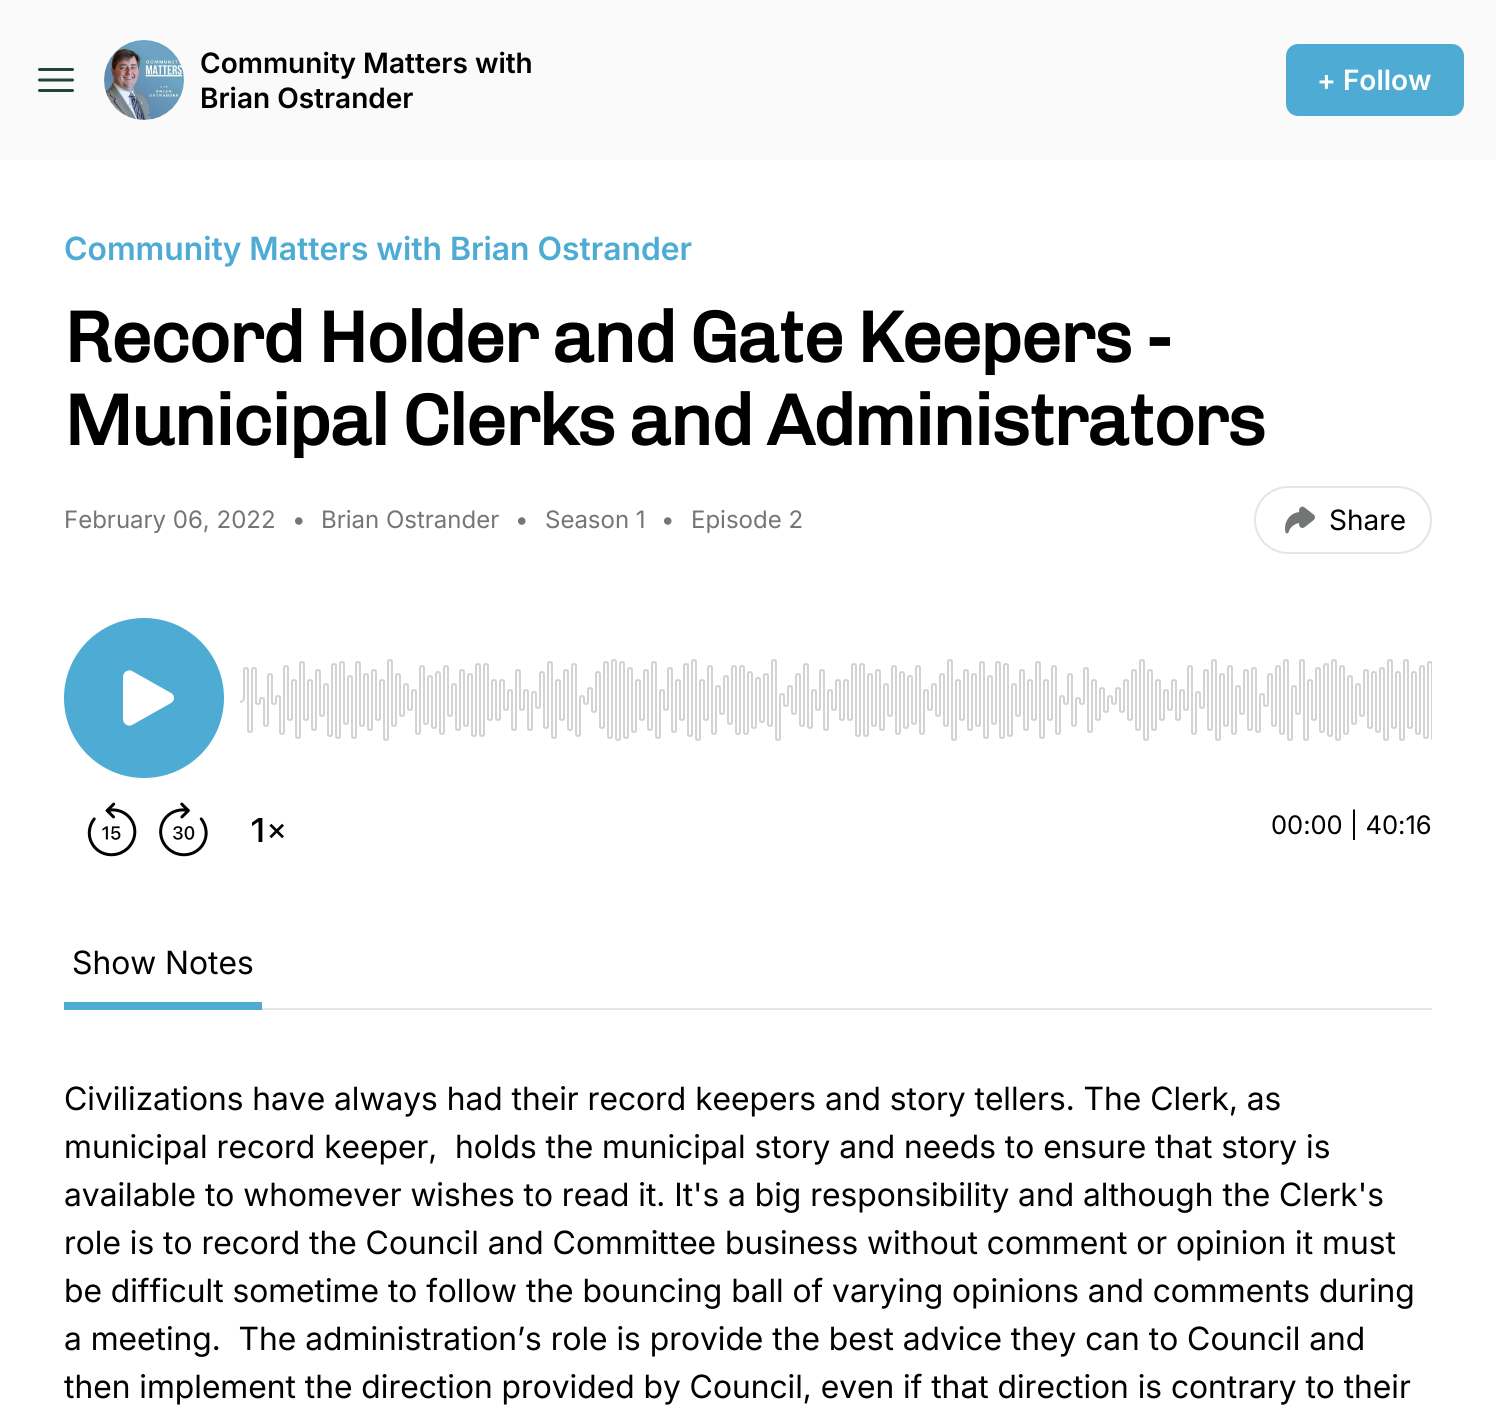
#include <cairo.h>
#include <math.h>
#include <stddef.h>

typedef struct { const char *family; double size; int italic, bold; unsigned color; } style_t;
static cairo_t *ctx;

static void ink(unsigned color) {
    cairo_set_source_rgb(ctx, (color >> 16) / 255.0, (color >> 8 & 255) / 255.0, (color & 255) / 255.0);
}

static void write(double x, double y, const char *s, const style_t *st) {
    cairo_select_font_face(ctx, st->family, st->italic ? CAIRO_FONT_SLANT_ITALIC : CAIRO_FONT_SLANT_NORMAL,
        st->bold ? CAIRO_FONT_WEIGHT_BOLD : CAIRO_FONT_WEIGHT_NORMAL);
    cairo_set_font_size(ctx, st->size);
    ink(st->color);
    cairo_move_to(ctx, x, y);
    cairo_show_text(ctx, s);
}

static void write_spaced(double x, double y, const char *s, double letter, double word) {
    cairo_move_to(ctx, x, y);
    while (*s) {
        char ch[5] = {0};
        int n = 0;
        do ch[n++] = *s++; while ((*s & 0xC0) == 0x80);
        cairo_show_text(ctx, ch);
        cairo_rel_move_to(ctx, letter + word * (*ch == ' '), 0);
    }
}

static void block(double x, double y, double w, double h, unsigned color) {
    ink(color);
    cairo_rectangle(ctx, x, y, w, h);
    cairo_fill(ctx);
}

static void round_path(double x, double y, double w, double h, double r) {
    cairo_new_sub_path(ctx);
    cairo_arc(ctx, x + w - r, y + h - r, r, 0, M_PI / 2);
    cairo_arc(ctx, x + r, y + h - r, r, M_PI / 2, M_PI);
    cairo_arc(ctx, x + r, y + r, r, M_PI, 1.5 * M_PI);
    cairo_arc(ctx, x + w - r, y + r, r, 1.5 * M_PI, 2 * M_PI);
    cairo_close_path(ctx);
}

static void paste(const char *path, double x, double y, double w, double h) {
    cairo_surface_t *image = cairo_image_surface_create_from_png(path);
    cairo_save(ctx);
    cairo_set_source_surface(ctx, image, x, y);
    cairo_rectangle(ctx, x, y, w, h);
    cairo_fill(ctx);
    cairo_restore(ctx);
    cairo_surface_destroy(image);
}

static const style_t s1 = {"Inter SemiBold", 28, 0, 0, 0x000000};
static const style_t s2 = {"Inter SemiBold", 28, 0, 0, 0xffffff};
static const style_t s3 = {"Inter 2 SemiBold", 32, 0, 0, 0x4eacd4};
static const style_t s4 = {"Inter", 24, 0, 0, 0x747576};
static const style_t s5 = {"Inter", 28, 0, 0, 0x000000};
static const style_t s6 = {"Inter", 25.5, 0, 0, 0x000000};
static const style_t s7 = {"Inter 2", 32, 0, 0, 0x000000};

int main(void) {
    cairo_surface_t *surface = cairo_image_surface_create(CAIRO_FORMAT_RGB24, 1496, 1409);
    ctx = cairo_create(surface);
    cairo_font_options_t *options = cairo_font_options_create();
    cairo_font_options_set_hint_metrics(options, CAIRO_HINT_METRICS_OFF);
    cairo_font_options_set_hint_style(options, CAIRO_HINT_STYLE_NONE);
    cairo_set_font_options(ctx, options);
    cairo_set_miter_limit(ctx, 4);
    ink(0xffffff);
    cairo_paint(ctx);
    block(0, 0, 1496, 160, 0xfafafa);
    cairo_new_path(ctx);
    cairo_move_to(ctx, 39.5, 69.5);
    cairo_line_to(ctx, 72.5, 69.5);
    cairo_move_to(ctx, 39.5, 80);
    cairo_line_to(ctx, 72.5, 80);
    cairo_move_to(ctx, 39.5, 90.5);
    cairo_line_to(ctx, 72.5, 90.5);
    ink(0x214538);
    cairo_set_line_width(ctx, 3);
    cairo_set_line_cap(ctx, CAIRO_LINE_CAP_ROUND);
    cairo_set_line_join(ctx, CAIRO_LINE_JOIN_ROUND);
    cairo_stroke(ctx);
    paste("pic1.png", 104, 40, 80, 80);
    write(200, 73, "Community Matters with", &s1);
    write(200, 108, "Brian Ostrander", &s1);
    ink(0x4eacd4);
    round_path(1286, 44, 178, 72, 12);
    cairo_fill(ctx);
    write(1317, 90, "+ Follow", &s2);
    write(64, 260, "Community Matters with Brian Ostrander", &s3);
    cairo_select_font_face(ctx, "Chivo", CAIRO_FONT_SLANT_NORMAL, CAIRO_FONT_WEIGHT_BOLD);
    cairo_set_font_size(ctx, 72);
    ink(0x000000);
    write_spaced(64, 362, "Record Holder and Gate Keepers -", -1.8, 0);
    write_spaced(64, 445, "Municipal Clerks and Administrators", -1.8, 0);
    write(64, 528, "February 06, 2022", &s4);
    write(292, 528, "•", &s4);
    write(321, 528, "Brian Ostrander", &s4);
    write(515, 528, "•", &s4);
    write(545, 528, "Season 1", &s4);
    write(661, 528, "•", &s4);
    write(691, 528, "Episode 2", &s4);
    round_path(1255, 487, 176, 66, 33);
    ink(0xe4e5e6);
    cairo_set_line_width(ctx, 2);
    cairo_set_line_cap(ctx, CAIRO_LINE_CAP_BUTT);
    cairo_set_line_join(ctx, CAIRO_LINE_JOIN_MITER);
    cairo_stroke(ctx);
    paste("pic2.png", 1285, 506, 30, 28);
    write(1329, 530, "Share", &s5);
    paste("pic3.png", 87, 802, 50, 55);
    paste("pic4.png", 159, 802, 49, 55);
    paste("pic5.png", 252, 818, 32, 24);
    ink(0x4eacd4);
    cairo_arc(ctx, 144, 698, 80, 0, 2 * M_PI);
    cairo_fill(ctx);
    ink(0xffffff);
    cairo_set_fill_rule(ctx, CAIRO_FILL_RULE_EVEN_ODD);
    cairo_new_path(ctx);
    cairo_move_to(ctx, 123, 677);
    cairo_curve_to(ctx, 123, 672, 128, 669, 132, 671);
    cairo_line_to(ctx, 171, 693);
    cairo_curve_to(ctx, 175, 695, 175, 701, 171, 703);
    cairo_line_to(ctx, 132, 725);
    cairo_curve_to(ctx, 128, 727, 123, 724, 123, 719);
    cairo_close_path(ctx);
    cairo_fill(ctx);
    paste("pic6.png", 240, 659, 1192, 82);
    write(1271, 834, "00:00 | 40:16", &s6);
    block(262, 1008, 1170, 2, 0xe4e5e6);
    block(64, 1002, 198, 8, 0x4eacd4);
    write(72, 974, "Show Notes", &s7);
    write(64, 1110, "Civilizations have always had their record keepers and story tellers. The Clerk, as", &s7);
    write(64, 1158, "municipal record keeper,  holds the municipal story and needs to ensure that story is", &s7);
    write(64, 1206, "available to whomever wishes to read it. It's a big responsibility and although the Clerk's", &s7);
    write(64, 1254, "role is to record the Council and Committee business without comment or opinion it must", &s7);
    write(64, 1302, "be difficult sometime to follow the bouncing ball of varying opinions and comments during", &s7);
    write(64, 1350, "a meeting.  The administration’s role is provide the best advice they can to Council and", &s7);
    write(64, 1398, "then implement the direction provided by Council, even if that direction is contrary to their", &s7);
    cairo_surface_write_to_png(surface, "screenshot.png");
    cairo_font_options_destroy(options);
    cairo_destroy(ctx);
    cairo_surface_destroy(surface);
    return 0;
}
